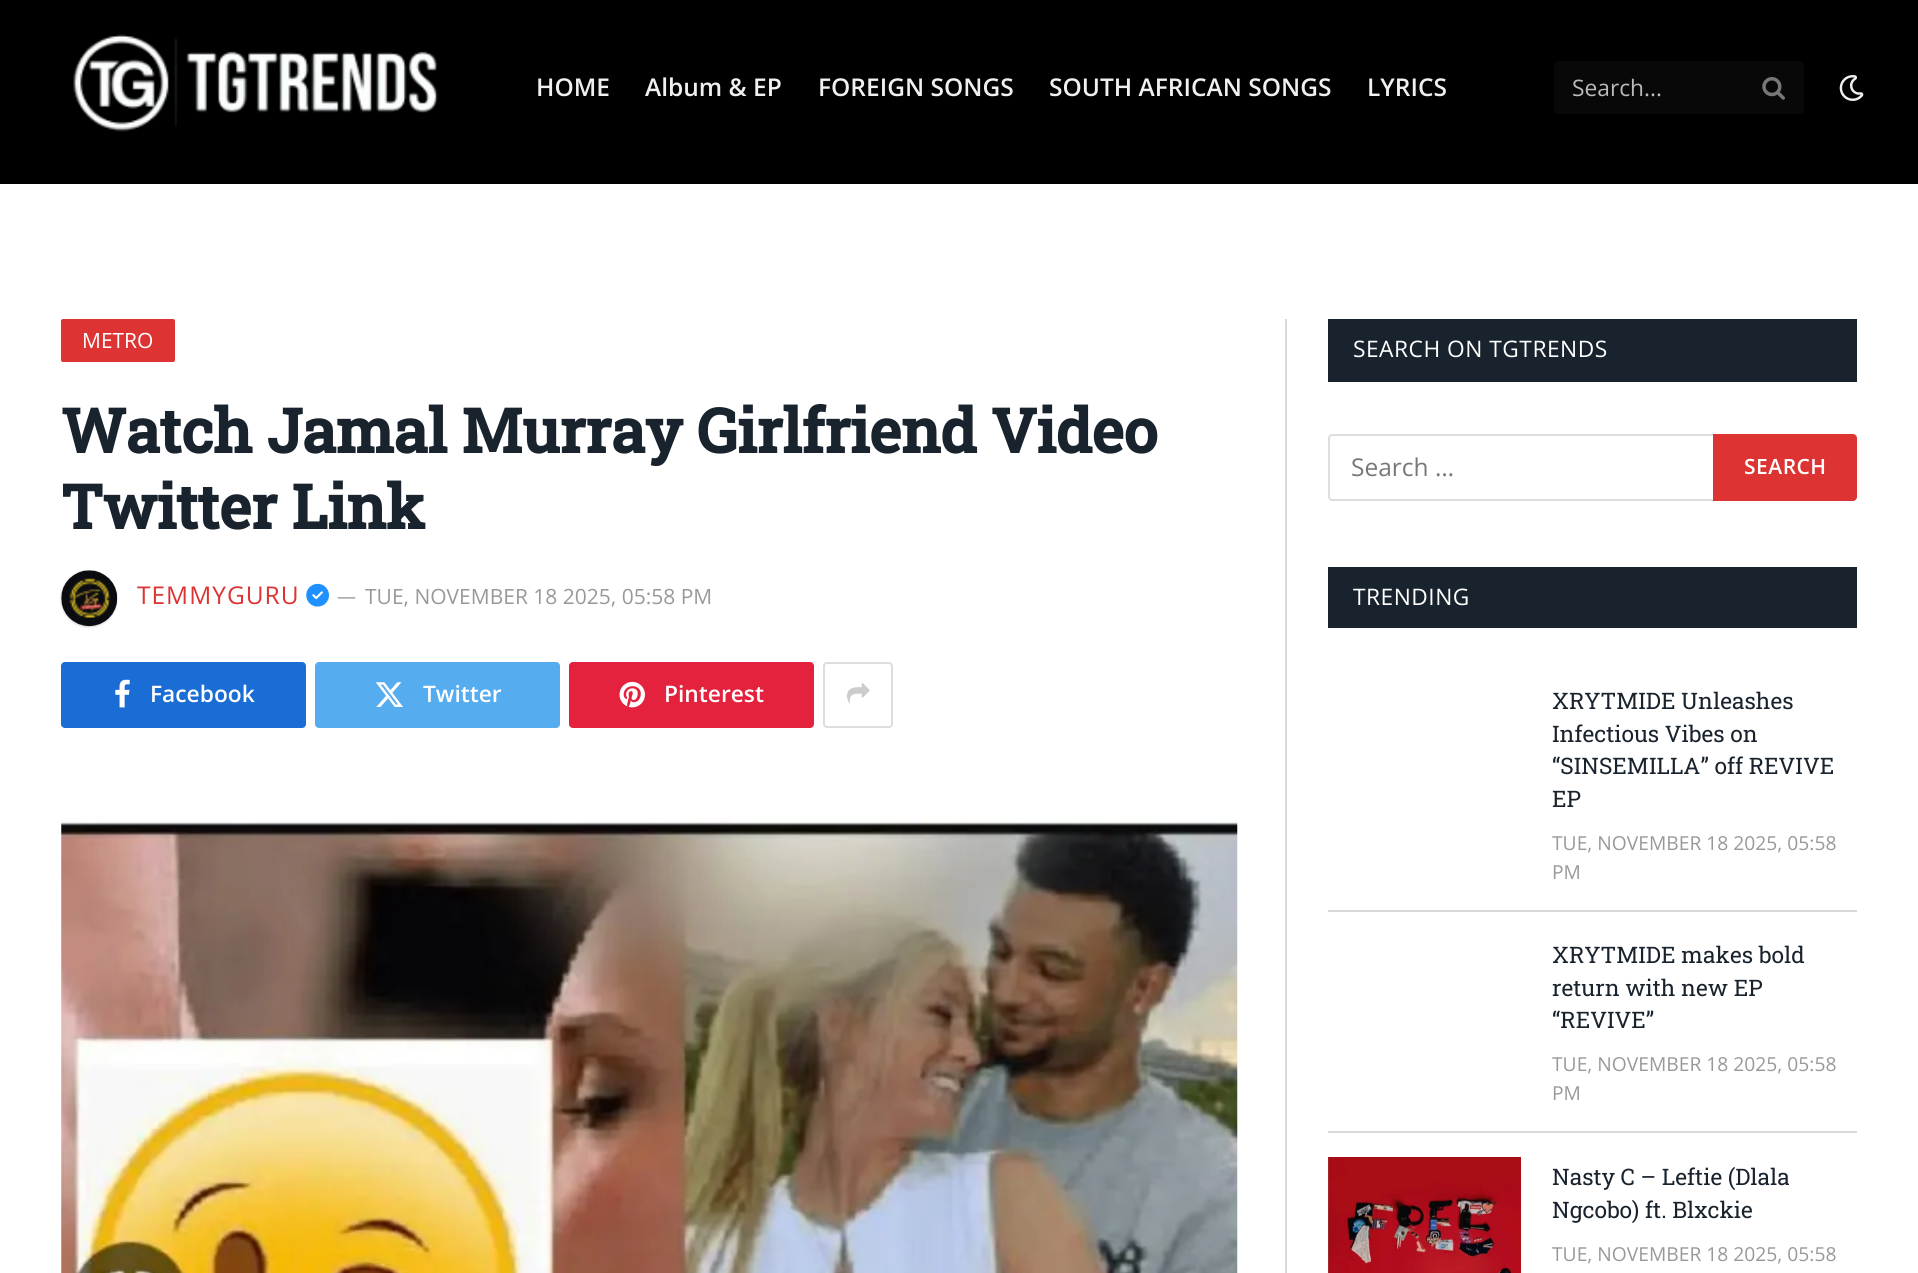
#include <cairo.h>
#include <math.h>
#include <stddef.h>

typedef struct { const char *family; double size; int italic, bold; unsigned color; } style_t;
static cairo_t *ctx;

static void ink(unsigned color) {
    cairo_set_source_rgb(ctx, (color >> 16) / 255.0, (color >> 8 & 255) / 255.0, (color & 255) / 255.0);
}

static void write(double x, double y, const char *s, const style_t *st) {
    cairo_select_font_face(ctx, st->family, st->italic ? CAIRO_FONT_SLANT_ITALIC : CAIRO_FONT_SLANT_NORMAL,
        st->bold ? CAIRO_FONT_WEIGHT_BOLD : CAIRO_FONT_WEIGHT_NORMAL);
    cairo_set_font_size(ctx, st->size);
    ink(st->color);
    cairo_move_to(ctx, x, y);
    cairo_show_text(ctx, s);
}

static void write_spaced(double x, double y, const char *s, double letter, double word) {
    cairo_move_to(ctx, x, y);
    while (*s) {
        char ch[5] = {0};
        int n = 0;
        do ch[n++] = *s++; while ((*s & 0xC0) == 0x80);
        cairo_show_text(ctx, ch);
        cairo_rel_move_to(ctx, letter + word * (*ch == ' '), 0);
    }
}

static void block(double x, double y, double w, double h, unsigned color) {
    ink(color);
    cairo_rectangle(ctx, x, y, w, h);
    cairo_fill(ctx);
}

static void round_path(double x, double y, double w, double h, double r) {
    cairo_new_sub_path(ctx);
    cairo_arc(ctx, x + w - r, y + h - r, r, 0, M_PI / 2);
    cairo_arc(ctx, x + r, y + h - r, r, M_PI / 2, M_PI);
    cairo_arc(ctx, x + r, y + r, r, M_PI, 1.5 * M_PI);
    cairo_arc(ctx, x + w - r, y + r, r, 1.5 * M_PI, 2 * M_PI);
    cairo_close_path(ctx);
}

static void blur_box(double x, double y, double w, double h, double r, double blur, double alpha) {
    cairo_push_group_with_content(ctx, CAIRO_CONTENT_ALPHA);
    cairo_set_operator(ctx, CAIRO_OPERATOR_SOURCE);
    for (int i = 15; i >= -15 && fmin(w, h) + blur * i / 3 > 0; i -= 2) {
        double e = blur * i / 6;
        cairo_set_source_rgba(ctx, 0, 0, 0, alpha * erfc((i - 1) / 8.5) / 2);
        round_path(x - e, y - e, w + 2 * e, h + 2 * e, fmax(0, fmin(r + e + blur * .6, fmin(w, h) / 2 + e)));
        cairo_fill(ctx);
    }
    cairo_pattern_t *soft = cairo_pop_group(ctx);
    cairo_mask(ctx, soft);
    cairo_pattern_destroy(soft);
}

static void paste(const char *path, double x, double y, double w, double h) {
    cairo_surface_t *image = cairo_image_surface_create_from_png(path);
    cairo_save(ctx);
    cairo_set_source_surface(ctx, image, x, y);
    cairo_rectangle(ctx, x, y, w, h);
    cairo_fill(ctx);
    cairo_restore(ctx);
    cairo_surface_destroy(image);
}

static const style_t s1 = {"Open Sans SemiBold", 24.5, 0, 0, 0xf0f0f0};
static const style_t s2 = {"Open Sans", 22.75, 0, 0, 0xbbbbbb};
static const style_t s3 = {"Open Sans", 21, 0, 0, 0xffffff};
static const style_t s4 = {"Open Sans", 19, 0, 0, 0x999999};
static const style_t s5 = {"Open Sans", 21, 0, 0, 0x999999};
static const style_t s6 = {"Open Sans SemiBold", 22.75, 0, 0, 0xffffff};
static const style_t s7 = {"Open Sans", 24.5, 0, 0, 0x777777};
static const style_t s8 = {"Roboto Slab", 22.75, 0, 0, 0x19232d};
static const style_t s9 = {"Open Sans", 19.25, 0, 0, 0x999999};

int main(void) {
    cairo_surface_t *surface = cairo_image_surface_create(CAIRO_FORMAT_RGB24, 1918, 1273);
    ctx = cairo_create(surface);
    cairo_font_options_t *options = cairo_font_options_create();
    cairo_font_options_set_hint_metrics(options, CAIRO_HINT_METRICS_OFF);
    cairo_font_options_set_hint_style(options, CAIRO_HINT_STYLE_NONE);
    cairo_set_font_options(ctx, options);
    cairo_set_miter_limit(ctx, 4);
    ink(0xffffff);
    cairo_paint(ctx);
    block(0, 0, 1918, 184, 0x000000);
    paste("pic1.png", 73, 34, 365, 98);
    write(536, 96, "HOME", &s1);
    write(645, 96, "Album & EP", &s1);
    write(818, 96, "FOREIGN SONGS", &s1);
    write(1049, 96, "SOUTH AFRICAN SONGS", &s1);
    write(1367, 96, "LYRICS", &s1);
    ink(0x080808);
    round_path(1554, 61, 250, 53, 4);
    cairo_fill(ctx);
    write(1572, 96, "Search...", &s2);
    paste("pic2.png", 1762, 77, 23, 23);
    paste("pic3.png", 1839, 75, 25, 26);
    ink(0xdd3333);
    round_path(61, 319, 114, 43, 2);
    cairo_fill(ctx);
    write(82, 348, "METRO", &s3);
    cairo_select_font_face(ctx, "Roboto Slab", CAIRO_FONT_SLANT_NORMAL, CAIRO_FONT_WEIGHT_BOLD);
    cairo_set_font_size(ctx, 61.25);
    ink(0x19232d);
    write_spaced(61, 453, "Watch Jamal Murray Girlfriend Video", -0.3, 0);
    write_spaced(61, 529, "Twitter Link", -0.3, 0);
    ink(0x000000);
    blur_box(61, 571, 56, 56, 28, 1, 0.2);
    paste("pic4.png", 61, 570, 57, 57);
    cairo_select_font_face(ctx, "Open Sans", CAIRO_FONT_SLANT_NORMAL, CAIRO_FONT_WEIGHT_NORMAL);
    cairo_set_font_size(ctx, 24.5);
    ink(0xdd3333);
    write_spaced(137, 604, "TEMMYGURU", 1, 0);
    paste("pic5.png", 306, 583, 23, 24);
    write(337, 603, "—", &s4);
    write(365, 604, "TUE, NOVEMBER 18 2025, 05:58 PM", &s5);
    ink(0x1a6dd4);
    round_path(61, 662, 245, 66, 4);
    cairo_fill(ctx);
    paste("pic6.png", 115, 679, 15, 29);
    write(150, 702, "Facebook", &s6);
    ink(0x55acef);
    round_path(315, 662, 245, 66, 4);
    cairo_fill(ctx);
    paste("pic7.png", 375, 682, 28, 25);
    write(423, 702, "Twitter", &s6);
    ink(0xe4223e);
    round_path(569, 662, 245, 66, 4);
    cairo_fill(ctx);
    paste("pic8.png", 619, 681, 26, 27);
    write(664, 702, "Pinterest", &s6);
    round_path(824, 663, 68, 64, 3);
    ink(0xdddddd);
    cairo_stroke(ctx);
    paste("pic9.png", 847, 683, 23, 21);
    paste("pic10.png", 61, 817, 1177, 456);
    block(1285, 319, 2, 954, 0xd9d9d9);
    block(1328, 319, 529, 63, 0x19232d);
    cairo_select_font_face(ctx, "Open Sans", CAIRO_FONT_SLANT_NORMAL, CAIRO_FONT_WEIGHT_NORMAL);
    ink(0xffffff);
    write_spaced(1353, 357, "SEARCH ON TGTRENDS", 0.5, 0);
    round_path(1329, 435, 387, 65, 3);
    ink(0xdddddd);
    cairo_stroke(ctx);
    write(1351, 476, "Search …", &s7);
    ink(0xdd3333);
    cairo_new_path(ctx);
    cairo_move_to(ctx, 1713, 434);
    cairo_line_to(ctx, 1853, 434);
    cairo_curve_to(ctx, 1855, 434, 1857, 436, 1857, 438);
    cairo_line_to(ctx, 1857, 497);
    cairo_curve_to(ctx, 1857, 499, 1855, 501, 1853, 501);
    cairo_line_to(ctx, 1713, 501);
    cairo_close_path(ctx);
    cairo_fill(ctx);
    cairo_select_font_face(ctx, "Open Sans SemiBold", CAIRO_FONT_SLANT_NORMAL, CAIRO_FONT_WEIGHT_NORMAL);
    cairo_set_font_size(ctx, 21);
    ink(0xffffff);
    write_spaced(1744, 474, "SEARCH", 0.5, 0);
    block(1328, 567, 529, 61, 0x19232d);
    cairo_select_font_face(ctx, "Open Sans", CAIRO_FONT_SLANT_NORMAL, CAIRO_FONT_WEIGHT_NORMAL);
    cairo_set_font_size(ctx, 22.75);
    ink(0xffffff);
    write_spaced(1353, 605, "TRENDING", 0.5, 0);
    write(1552, 709, "XRYTMIDE Unleashes", &s8);
    write(1552, 742, "Infectious Vibes on", &s8);
    write(1552, 774, "“SINSEMILLA” off REVIVE", &s8);
    write(1552, 807, "EP", &s8);
    write(1552, 850, "TUE, NOVEMBER 18 2025, 05:58", &s9);
    write(1552, 879, "PM", &s9);
    block(1328, 910, 529, 2, 0xd9d9d9);
    write(1552, 963, "XRYTMIDE makes bold", &s8);
    write(1552, 996, "return with new EP", &s8);
    write(1552, 1028, "“REVIVE”", &s8);
    write(1552, 1071, "TUE, NOVEMBER 18 2025, 05:58", &s9);
    write(1552, 1100, "PM", &s9);
    block(1328, 1131, 529, 2, 0xd9d9d9);
    paste("pic11.png", 1328, 1157, 193, 116);
    write(1552, 1185, "Nasty C – Leftie (Dlala", &s8);
    write(1552, 1218, "Ngcobo) ft. Blxckie", &s8);
    write(1552, 1261, "TUE, NOVEMBER 18 2025, 05:58", &s9);
    cairo_surface_write_to_png(surface, "screenshot.png");
    cairo_font_options_destroy(options);
    cairo_destroy(ctx);
    cairo_surface_destroy(surface);
    return 0;
}
